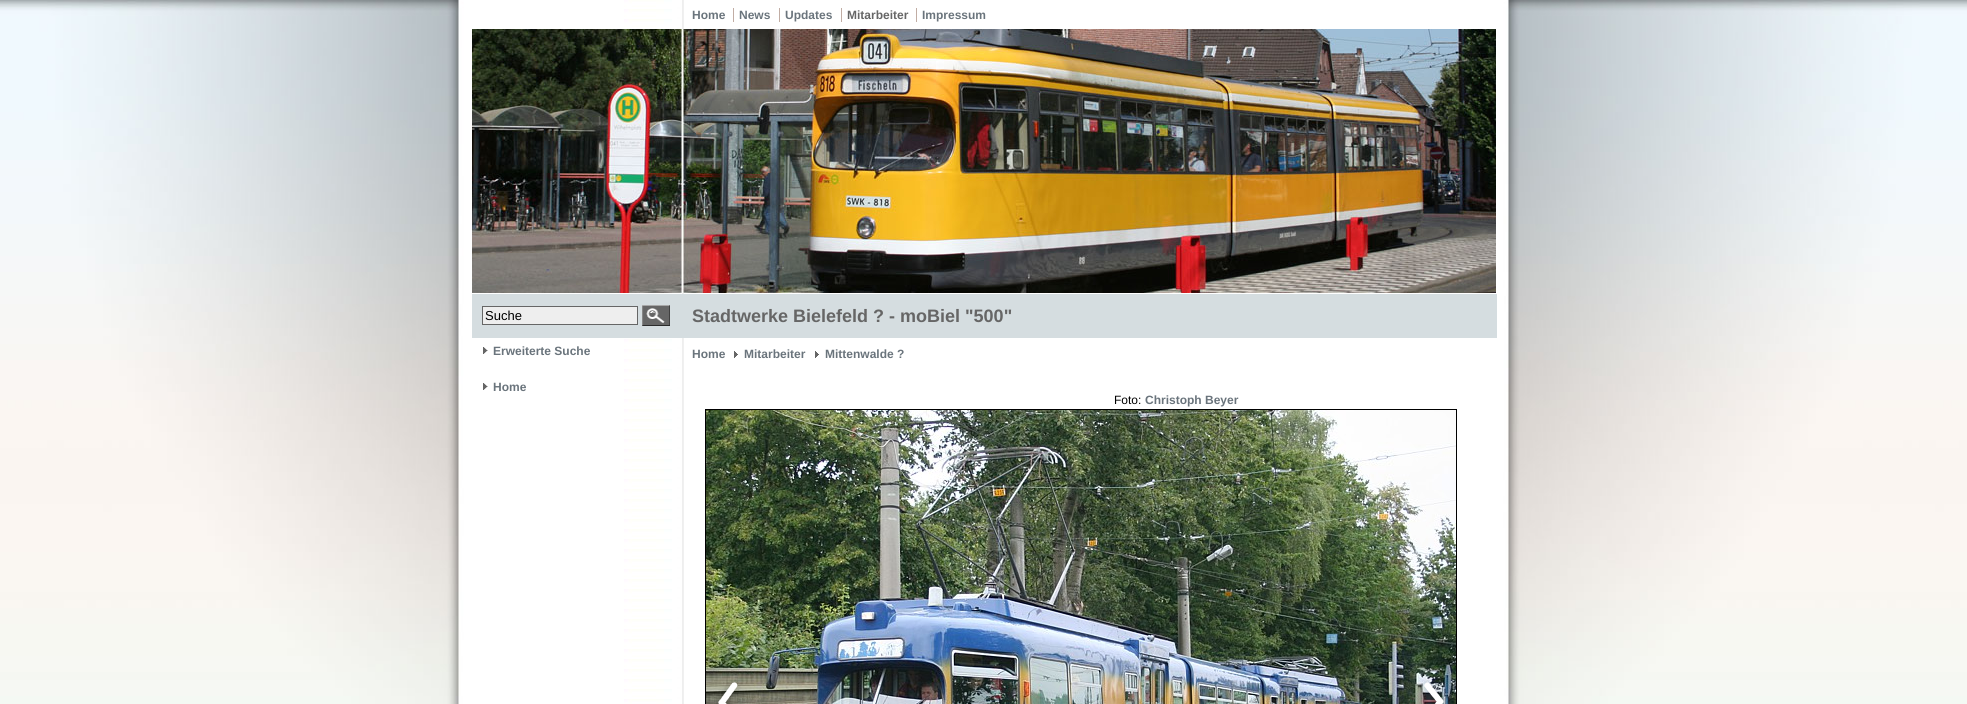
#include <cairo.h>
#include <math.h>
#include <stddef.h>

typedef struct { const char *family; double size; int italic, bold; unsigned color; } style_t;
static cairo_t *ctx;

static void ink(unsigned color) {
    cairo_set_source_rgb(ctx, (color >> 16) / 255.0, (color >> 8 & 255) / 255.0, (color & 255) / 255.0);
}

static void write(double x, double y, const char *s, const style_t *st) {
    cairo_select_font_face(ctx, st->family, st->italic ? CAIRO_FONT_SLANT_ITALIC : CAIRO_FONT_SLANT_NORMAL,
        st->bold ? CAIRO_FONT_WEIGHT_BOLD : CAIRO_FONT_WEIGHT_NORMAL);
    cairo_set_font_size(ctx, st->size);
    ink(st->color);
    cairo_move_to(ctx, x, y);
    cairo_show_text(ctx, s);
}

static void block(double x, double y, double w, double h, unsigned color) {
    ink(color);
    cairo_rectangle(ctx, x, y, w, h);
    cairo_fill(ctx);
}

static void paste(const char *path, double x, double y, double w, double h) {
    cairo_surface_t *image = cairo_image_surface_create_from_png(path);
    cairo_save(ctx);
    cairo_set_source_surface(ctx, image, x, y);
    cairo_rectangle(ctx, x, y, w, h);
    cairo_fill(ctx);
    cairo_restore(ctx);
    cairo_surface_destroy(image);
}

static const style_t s1 = {"Liberation Sans", 12, 0, 1, 0x6a747c};
static const style_t s2 = {"Liberation Sans", 12, 0, 1, 0x666666};
static const style_t s3 = {"Liberation Sans", 13, 0, 0, 0x000000};
static const style_t s4 = {"Liberation Sans", 18, 0, 1, 0x666666};
static const style_t s5 = {"Liberation Sans", 12, 0, 0, 0x000000};

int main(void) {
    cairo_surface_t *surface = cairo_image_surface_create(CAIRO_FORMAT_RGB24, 1967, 704);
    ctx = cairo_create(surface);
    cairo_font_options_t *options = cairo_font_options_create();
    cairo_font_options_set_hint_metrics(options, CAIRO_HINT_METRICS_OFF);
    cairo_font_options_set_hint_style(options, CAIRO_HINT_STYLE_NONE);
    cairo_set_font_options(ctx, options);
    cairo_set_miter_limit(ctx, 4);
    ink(0xffffff);
    cairo_paint(ctx);
    paste("pic1.png", 0, 0, 1967, 704);
    paste("pic2.png", 624, 0, 60, 704);
    paste("pic3.png", 472, 29, 1024, 264);
    write(692, 19, "Home", &s1);
    write(739, 19, "News", &s1);
    block(733, 8, 1, 14, 0xc1ada4);
    write(785, 19, "Updates", &s1);
    block(779, 8, 1, 14, 0xc1ada4);
    write(847, 19, "Mitarbeiter", &s2);
    block(841, 8, 1, 14, 0xc1ada4);
    write(922, 19, "Impressum", &s1);
    block(916, 8, 1, 14, 0xc1ada4);
    block(472, 294, 1025, 44, 0xd5dde0);
    ink(0xeeeeee);
    cairo_rectangle(ctx, 482.5, 306.5, 155, 18);
    cairo_fill_preserve(ctx);
    ink(0x666666);
    cairo_set_line_width(ctx, 1);
    cairo_stroke(ctx);
    write(485, 320, "Suche", &s3);
    paste("pic4.png", 642, 305, 28, 21);
    write(692, 322, "Stadtwerke Bielefeld ? - moBiel \"500\"", &s4);
    paste("pic5.png", 483, 347, 5, 7);
    write(493, 355, "Erweiterte Suche", &s1);
    paste("pic5.png", 483, 383, 5, 7);
    write(493, 391, "Home", &s1);
    write(692, 358, "Home", &s1);
    paste("pic6.png", 734, 351, 4, 7);
    write(744, 358, "Mitarbeiter", &s1);
    paste("pic6.png", 815, 351, 4, 7);
    write(825, 358, "Mittenwalde ?", &s1);
    write(1114, 404, "Foto:", &s5);
    write(1145, 404, "Christoph Beyer", &s1);
    cairo_rectangle(ctx, 705.5, 409.5, 751, 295);
    ink(0x000000);
    cairo_stroke(ctx);
    paste("pic7.png", 706, 410, 750, 294);
    paste("pic8.png", 716, 680, 25, 24);
    paste("pic9.png", 1421, 679, 25, 25);
    cairo_surface_write_to_png(surface, "screenshot.png");
    cairo_font_options_destroy(options);
    cairo_destroy(ctx);
    cairo_surface_destroy(surface);
    return 0;
}
